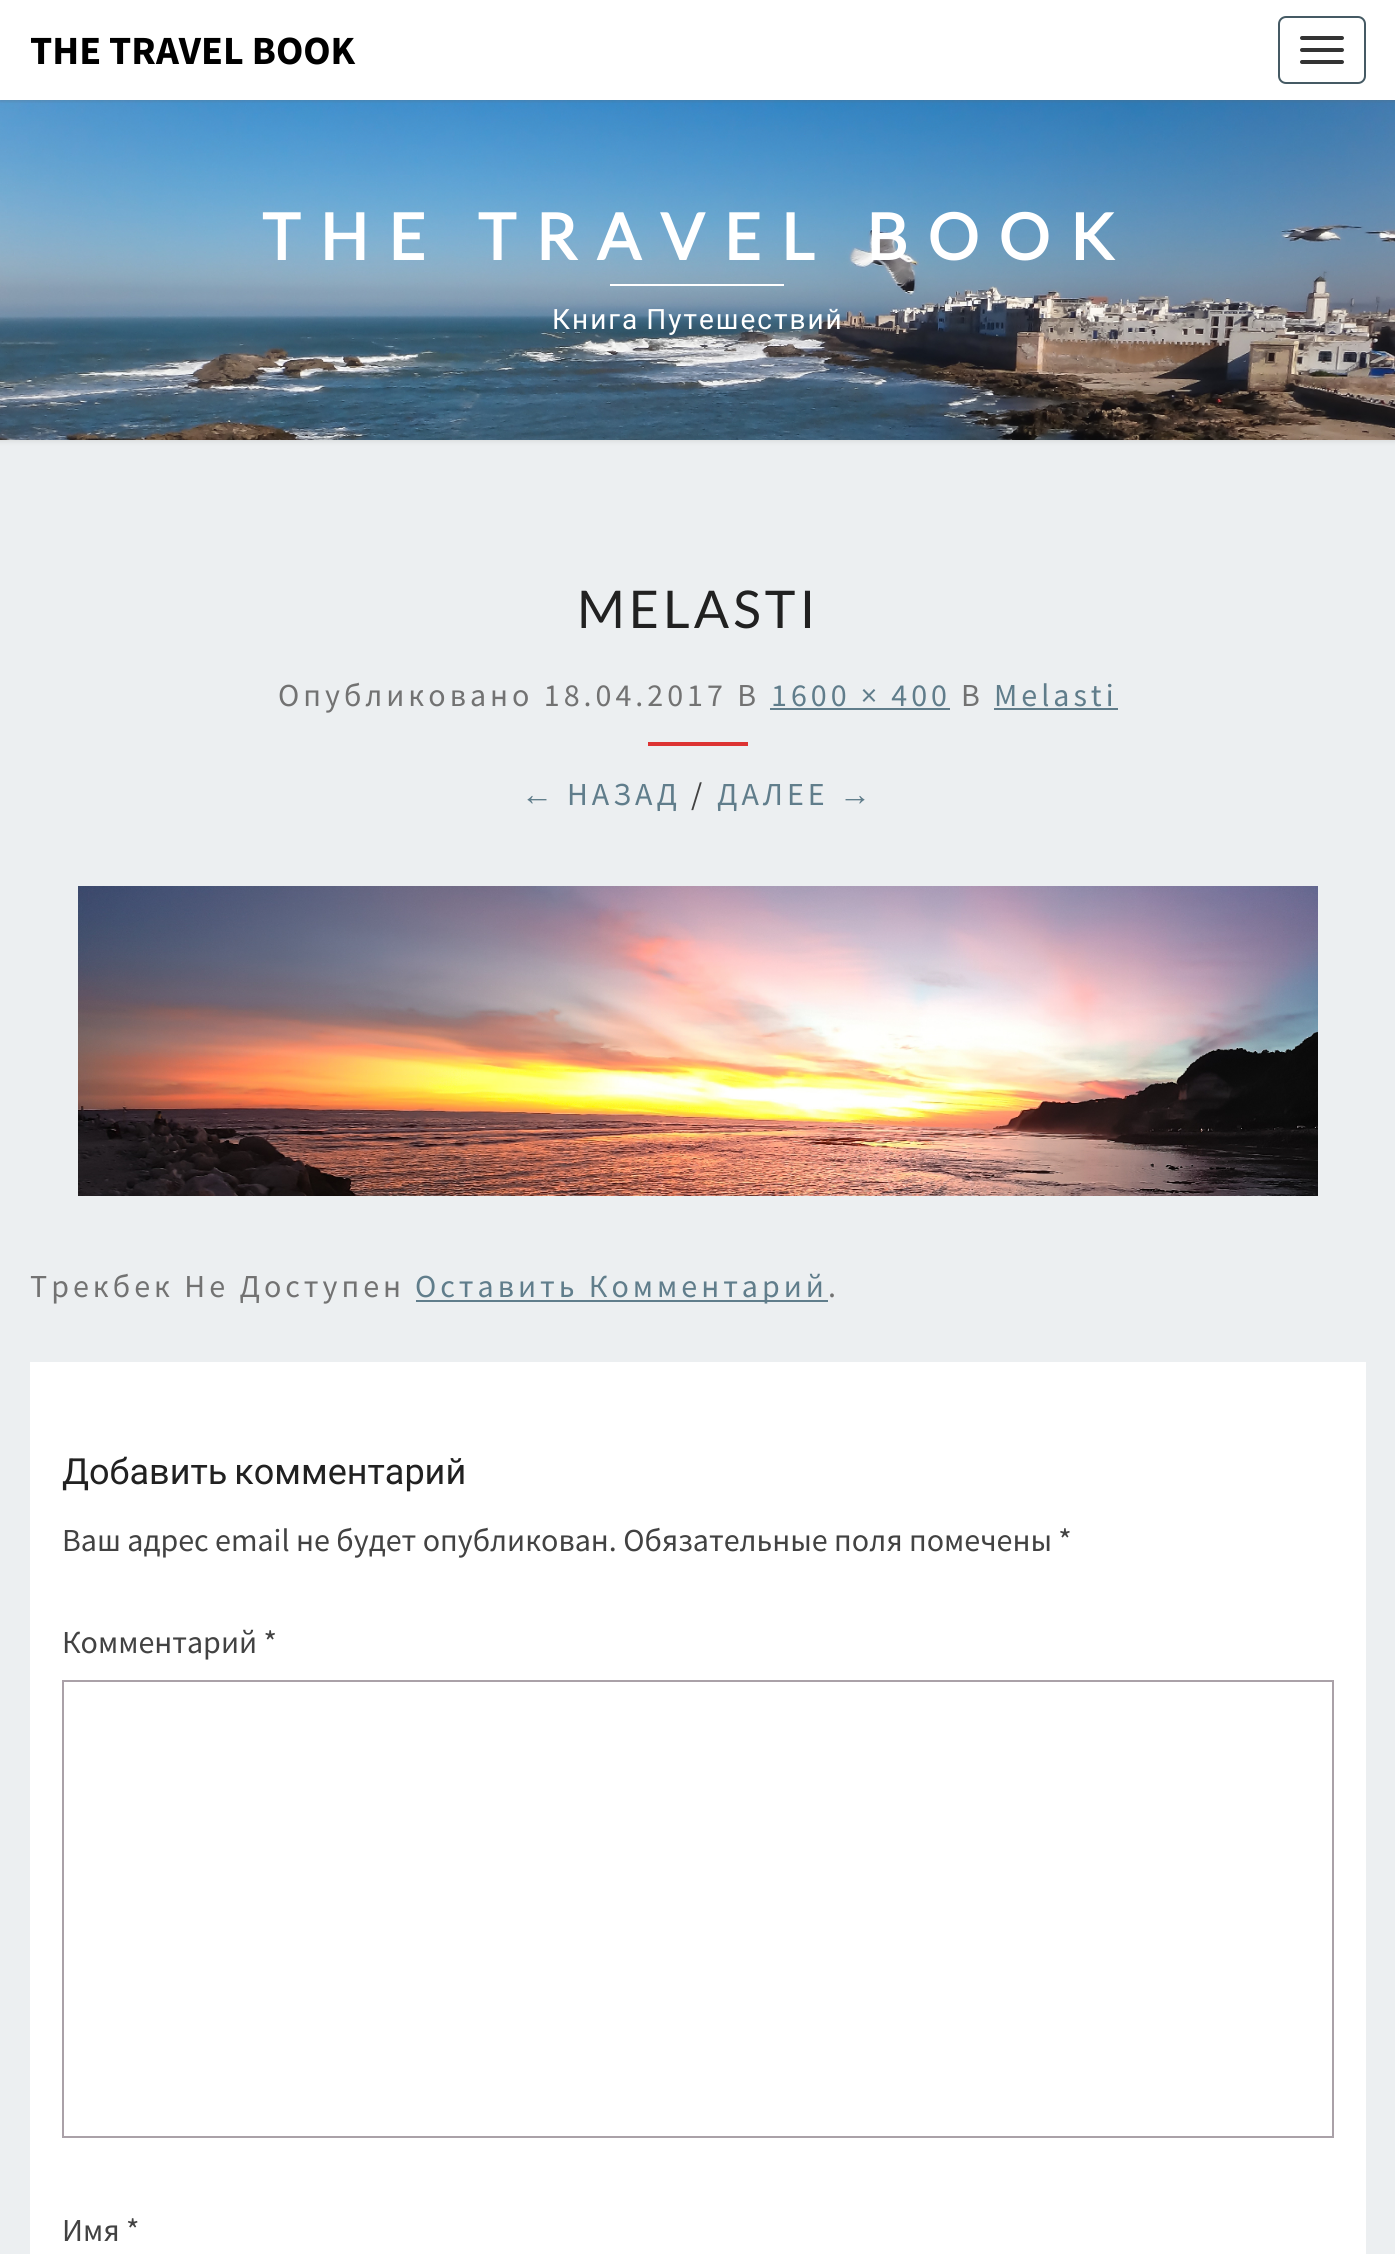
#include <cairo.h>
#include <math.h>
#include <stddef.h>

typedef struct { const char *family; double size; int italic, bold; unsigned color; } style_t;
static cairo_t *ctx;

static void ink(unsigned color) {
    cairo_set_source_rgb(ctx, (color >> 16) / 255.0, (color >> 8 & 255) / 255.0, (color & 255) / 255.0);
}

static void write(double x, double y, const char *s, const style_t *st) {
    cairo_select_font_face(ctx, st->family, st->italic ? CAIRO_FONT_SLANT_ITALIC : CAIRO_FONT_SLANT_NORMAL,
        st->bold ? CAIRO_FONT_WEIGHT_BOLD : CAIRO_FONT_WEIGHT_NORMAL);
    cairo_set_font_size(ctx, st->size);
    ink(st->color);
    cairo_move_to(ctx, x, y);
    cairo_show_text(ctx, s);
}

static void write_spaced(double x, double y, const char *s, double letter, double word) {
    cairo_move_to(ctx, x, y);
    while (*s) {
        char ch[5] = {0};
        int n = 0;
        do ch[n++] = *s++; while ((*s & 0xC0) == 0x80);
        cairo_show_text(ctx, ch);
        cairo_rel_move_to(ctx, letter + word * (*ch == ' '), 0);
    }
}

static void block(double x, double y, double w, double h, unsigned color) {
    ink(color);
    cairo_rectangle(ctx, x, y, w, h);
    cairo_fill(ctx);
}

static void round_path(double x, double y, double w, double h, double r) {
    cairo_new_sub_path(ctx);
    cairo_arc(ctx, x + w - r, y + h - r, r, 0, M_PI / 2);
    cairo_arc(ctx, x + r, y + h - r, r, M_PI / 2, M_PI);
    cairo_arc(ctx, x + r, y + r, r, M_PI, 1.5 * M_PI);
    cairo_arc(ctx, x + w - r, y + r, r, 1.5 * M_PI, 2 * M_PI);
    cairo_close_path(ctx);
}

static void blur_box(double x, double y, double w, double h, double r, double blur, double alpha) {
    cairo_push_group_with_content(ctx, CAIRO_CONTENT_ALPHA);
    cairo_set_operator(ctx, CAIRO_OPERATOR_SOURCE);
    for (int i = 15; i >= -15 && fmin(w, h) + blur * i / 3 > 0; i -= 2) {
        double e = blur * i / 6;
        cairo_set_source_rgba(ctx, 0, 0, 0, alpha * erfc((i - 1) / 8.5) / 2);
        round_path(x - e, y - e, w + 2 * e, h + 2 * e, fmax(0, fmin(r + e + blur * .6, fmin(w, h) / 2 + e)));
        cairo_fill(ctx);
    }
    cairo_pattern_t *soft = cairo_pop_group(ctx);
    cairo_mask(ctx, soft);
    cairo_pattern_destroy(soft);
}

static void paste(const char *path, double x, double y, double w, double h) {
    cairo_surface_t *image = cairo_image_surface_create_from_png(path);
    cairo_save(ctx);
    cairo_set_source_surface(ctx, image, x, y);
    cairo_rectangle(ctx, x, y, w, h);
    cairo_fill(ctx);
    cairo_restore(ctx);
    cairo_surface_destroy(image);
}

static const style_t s1 = {"Source Sans Pro", 40, 0, 1, 0x000000};
static const style_t s2 = {"Source Sans Pro", 32, 0, 0, 0x424242};

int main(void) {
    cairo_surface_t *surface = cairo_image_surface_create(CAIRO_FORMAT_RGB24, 1395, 2254);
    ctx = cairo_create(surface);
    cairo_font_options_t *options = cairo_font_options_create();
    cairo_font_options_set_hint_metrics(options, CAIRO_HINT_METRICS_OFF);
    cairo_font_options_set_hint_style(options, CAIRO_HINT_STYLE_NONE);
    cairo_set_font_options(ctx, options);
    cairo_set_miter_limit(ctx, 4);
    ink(0xeceff1);
    cairo_paint(ctx);
    ink(0xb6b6b6);
    blur_box(-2, 98, 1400, 344, 0, 2, 0.3);
    paste("pic1.png", 0, 100, 1395, 340);
    ink(0x646464);
    blur_box(0, 2, 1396, 100, 0, 1, 0.2);
    block(0, 0, 1395, 100, 0xffffff);
    write(30, 64, "THE TRAVEL BOOK", &s1);
    round_path(1279, 17, 86, 66, 7);
    ink(0x455a64);
    cairo_stroke(ctx);
    ink(0x333333);
    round_path(1300, 36, 44, 4, 2);
    cairo_fill(ctx);
    round_path(1300, 48, 44, 4, 2);
    cairo_fill(ctx);
    round_path(1300, 60, 44, 4, 2);
    cairo_fill(ctx);
    cairo_select_font_face(ctx, "Lato", CAIRO_FONT_SLANT_NORMAL, CAIRO_FONT_WEIGHT_BOLD);
    cairo_set_font_size(ctx, 64);
    ink(0xffffff);
    write_spaced(262, 260, "THE TRAVEL BOOK", 20, 0);
    block(610, 284, 174, 2, 0xffffff);
    cairo_select_font_face(ctx, "Roboto", CAIRO_FONT_SLANT_NORMAL, CAIRO_FONT_WEIGHT_NORMAL);
    cairo_set_font_size(ctx, 28);
    write_spaced(552, 329, "Книга Путешествий", 2, -2);
    cairo_select_font_face(ctx, "Lato", CAIRO_FONT_SLANT_NORMAL, CAIRO_FONT_WEIGHT_NORMAL);
    cairo_set_font_size(ctx, 52);
    ink(0x212121);
    write_spaced(577, 628, "MELASTI", 4, 0);
    cairo_select_font_face(ctx, "Source Sans Pro", CAIRO_FONT_SLANT_NORMAL, CAIRO_FONT_WEIGHT_NORMAL);
    cairo_set_font_size(ctx, 32);
    ink(0x727272);
    write_spaced(278, 706, "Опубликовано 18.04.2017 В", 4, 0);
    ink(0x607d8b);
    write_spaced(771, 706, "1600 × 400", 4, 0);
    block(770, 708, 180, 2, 0x607d8b);
    ink(0x727272);
    write_spaced(961, 706, "В", 4, 0);
    ink(0x607d8b);
    write_spaced(994, 706, "Melasti", 4, 0);
    block(994, 708, 124, 2, 0x607d8b);
    block(648, 742, 100, 4, 0xdd3333);
    cairo_select_font_face(ctx, "Liberation Sans", CAIRO_FONT_SLANT_NORMAL, CAIRO_FONT_WEIGHT_NORMAL);
    ink(0x607d8b);
    write_spaced(521, 805, "←", 4, 0);
    cairo_select_font_face(ctx, "Source Sans Pro", CAIRO_FONT_SLANT_NORMAL, CAIRO_FONT_WEIGHT_NORMAL);
    write_spaced(567, 805, "НАЗАД", 4, 0);
    ink(0x424242);
    write_spaced(691, 805, "/", 4, 0);
    ink(0x607d8b);
    write_spaced(717, 805, "ДАЛЕЕ", 4, 0);
    cairo_select_font_face(ctx, "Liberation Sans", CAIRO_FONT_SLANT_NORMAL, CAIRO_FONT_WEIGHT_NORMAL);
    write_spaced(839, 805, "→", 4, 0);
    paste("pic2.png", 78, 886, 1240, 310);
    cairo_select_font_face(ctx, "Source Sans Pro", CAIRO_FONT_SLANT_NORMAL, CAIRO_FONT_WEIGHT_NORMAL);
    ink(0x727272);
    write_spaced(30, 1297, "Трекбек Не Доступен", 4, 0);
    block(416, 1300, 412, 2, 0x607d8b);
    write_spaced(415, 1297, "Оставить Комментарий", 4, 0);
    ink(0x727272);
    write_spaced(828, 1297, ".", 4, 0);
    block(30, 1362, 1336, 892, 0xffffff);
    cairo_select_font_face(ctx, "Roboto", CAIRO_FONT_SLANT_NORMAL, CAIRO_FONT_WEIGHT_NORMAL);
    cairo_set_font_size(ctx, 36);
    ink(0x212121);
    write_spaced(62, 1484, "Добавить комментарий", 0, -2);
    write(62, 1551, "Ваш адрес email не будет опубликован. Обязательные поля помечены *", &s2);
    write(62, 1653, "Комментарий *", &s2);
    cairo_rectangle(ctx, 63, 1681, 1270, 456);
    ink(0xaaa1a8);
    cairo_stroke(ctx);
    write(62, 2241, "Имя *", &s2);
    cairo_surface_write_to_png(surface, "screenshot.png");
    cairo_font_options_destroy(options);
    cairo_destroy(ctx);
    cairo_surface_destroy(surface);
    return 0;
}
